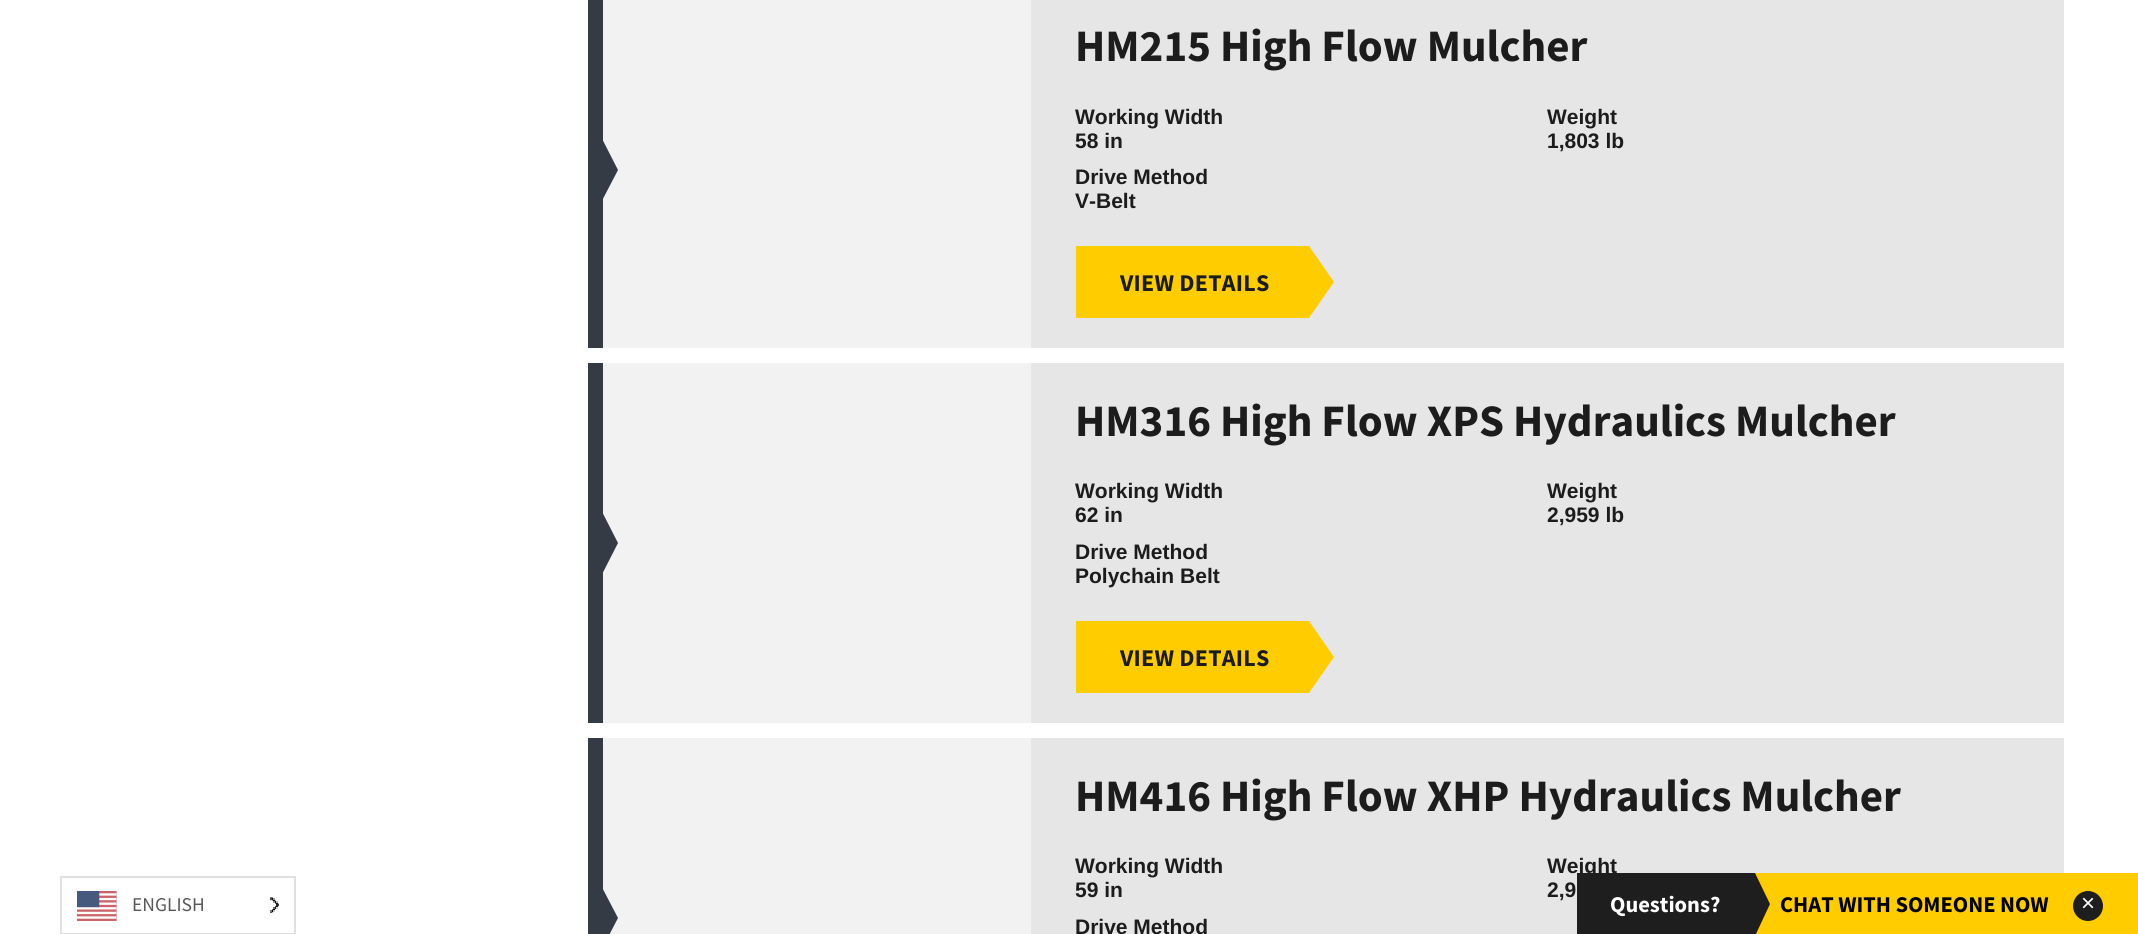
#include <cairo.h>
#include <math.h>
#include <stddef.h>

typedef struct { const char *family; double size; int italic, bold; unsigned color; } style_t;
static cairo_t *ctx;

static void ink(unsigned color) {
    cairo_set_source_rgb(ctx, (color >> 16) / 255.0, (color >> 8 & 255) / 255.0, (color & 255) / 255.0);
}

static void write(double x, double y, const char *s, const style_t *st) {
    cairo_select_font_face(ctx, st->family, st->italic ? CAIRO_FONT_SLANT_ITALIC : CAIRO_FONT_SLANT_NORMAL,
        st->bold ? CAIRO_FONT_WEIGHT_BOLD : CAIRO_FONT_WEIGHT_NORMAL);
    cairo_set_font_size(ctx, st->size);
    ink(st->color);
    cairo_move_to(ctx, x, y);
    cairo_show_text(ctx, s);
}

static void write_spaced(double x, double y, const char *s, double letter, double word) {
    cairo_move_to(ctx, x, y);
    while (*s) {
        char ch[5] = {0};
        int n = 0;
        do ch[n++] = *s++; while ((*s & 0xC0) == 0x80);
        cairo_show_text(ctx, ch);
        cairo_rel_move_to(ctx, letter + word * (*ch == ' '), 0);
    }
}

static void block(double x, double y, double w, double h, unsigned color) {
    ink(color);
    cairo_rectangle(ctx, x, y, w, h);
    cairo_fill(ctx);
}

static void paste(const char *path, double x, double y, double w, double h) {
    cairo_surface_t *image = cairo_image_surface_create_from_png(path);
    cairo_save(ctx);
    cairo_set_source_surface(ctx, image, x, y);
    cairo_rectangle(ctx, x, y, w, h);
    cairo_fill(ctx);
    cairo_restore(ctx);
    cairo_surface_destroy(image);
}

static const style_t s1 = {"Source Sans Pro", 45, 0, 1, 0x1c1c1c};
static const style_t s2 = {"Liberation Sans", 21, 0, 1, 0x1c1c1c};
static const style_t s3 = {"Source Sans Pro", 19.5, 0, 0, 0x575757};
static const style_t s4 = {"Source Sans Pro", 22.5, 0, 1, 0xffffff};
static const style_t s5 = {"Source Sans Pro", 22.5, 0, 1, 0x000000};
static const style_t s6 = {"Liberation Sans", 24, 0, 0, 0xffffff};

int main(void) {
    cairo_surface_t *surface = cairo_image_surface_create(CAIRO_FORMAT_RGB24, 2138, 934);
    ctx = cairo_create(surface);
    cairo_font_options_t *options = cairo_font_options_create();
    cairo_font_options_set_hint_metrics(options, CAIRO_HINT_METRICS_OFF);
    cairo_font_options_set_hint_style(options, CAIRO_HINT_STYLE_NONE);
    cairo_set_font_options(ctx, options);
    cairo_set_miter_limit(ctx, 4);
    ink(0xffffff);
    cairo_paint(ctx);
    block(603, 0, 428, 348, 0xf2f2f2);
    block(588, 0, 15, 348, 0x343b45);
    cairo_new_path(ctx);
    cairo_move_to(ctx, 594, 216);
    cairo_line_to(ctx, 594, 123);
    cairo_line_to(ctx, 618, 170);
    cairo_close_path(ctx);
    cairo_fill(ctx);
    block(1031, 0, 1033, 348, 0xe6e6e6);
    write(1075, 61, "HM215 High Flow Mulcher", &s1);
    write(1075, 124, "Working Width", &s2);
    write(1075, 148, "58 in", &s2);
    write(1547, 124, "Weight", &s2);
    write(1547, 148, "1,803 lb", &s2);
    write(1075, 184, "Drive Method", &s2);
    write(1075, 208, "V-Belt", &s2);
    block(1076, 246, 231, 72, 0xffcc00);
    cairo_select_font_face(ctx, "Source Sans Pro", CAIRO_FONT_SLANT_NORMAL, CAIRO_FONT_WEIGHT_BOLD);
    cairo_set_font_size(ctx, 24);
    ink(0x1c1c1c);
    write_spaced(1120, 291, "VIEW DETAILS", 0.25, 0);
    ink(0xffcc00);
    cairo_new_path(ctx);
    cairo_move_to(ctx, 1307, 318);
    cairo_line_to(ctx, 1307, 246);
    cairo_line_to(ctx, 1309, 246);
    cairo_line_to(ctx, 1334, 282);
    cairo_line_to(ctx, 1309, 318);
    cairo_close_path(ctx);
    cairo_fill(ctx);
    block(603, 363, 428, 360, 0xf2f2f2);
    block(588, 363, 15, 360, 0x343b45);
    cairo_new_path(ctx);
    cairo_move_to(ctx, 594, 590);
    cairo_line_to(ctx, 594, 496);
    cairo_line_to(ctx, 618, 543);
    cairo_close_path(ctx);
    cairo_fill(ctx);
    block(1031, 363, 1033, 360, 0xe6e6e6);
    write(1075, 436, "HM316 High Flow XPS Hydraulics Mulcher", &s1);
    write(1075, 498, "Working Width", &s2);
    write(1075, 522, "62 in", &s2);
    write(1547, 498, "Weight", &s2);
    write(1547, 522, "2,959 lb", &s2);
    write(1075, 559, "Drive Method", &s2);
    write(1075, 583, "Polychain Belt", &s2);
    block(1076, 621, 231, 72, 0xffcc00);
    cairo_select_font_face(ctx, "Source Sans Pro", CAIRO_FONT_SLANT_NORMAL, CAIRO_FONT_WEIGHT_BOLD);
    cairo_set_font_size(ctx, 24);
    ink(0x1c1c1c);
    write_spaced(1120, 666, "VIEW DETAILS", 0.25, 0);
    ink(0xffcc00);
    cairo_new_path(ctx);
    cairo_move_to(ctx, 1307, 693);
    cairo_line_to(ctx, 1307, 621);
    cairo_line_to(ctx, 1309, 621);
    cairo_line_to(ctx, 1334, 657);
    cairo_line_to(ctx, 1309, 693);
    cairo_close_path(ctx);
    cairo_fill(ctx);
    block(603, 738, 428, 196, 0xf2f2f2);
    block(588, 738, 15, 196, 0x343b45);
    cairo_new_path(ctx);
    cairo_move_to(ctx, 594, 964);
    cairo_line_to(ctx, 594, 872);
    cairo_line_to(ctx, 618, 918);
    cairo_close_path(ctx);
    cairo_fill(ctx);
    block(1031, 738, 1033, 196, 0xe6e6e6);
    write(1075, 811, "HM416 High Flow XHP Hydraulics Mulcher", &s1);
    write(1075, 873, "Working Width", &s2);
    write(1075, 897, "59 in", &s2);
    write(1547, 873, "Weight", &s2);
    write(1547, 897, "2,9", &s2);
    write(1075, 934, "Drive Method", &s2);
    cairo_rectangle(ctx, 61, 877, 234, 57);
    ink(0xe0e0e0);
    cairo_stroke(ctx);
    paste("pic1.png", 77, 891, 40, 30);
    write(132, 911, "ENGLISH", &s3);
    paste("pic2.png", 270, 897, 9, 16);
    block(1755, 873, 383, 61, 0xffcc00);
    block(1577, 873, 178, 61, 0x1e1e1e);
    write(1610, 912, "Questions?", &s4);
    ink(0x1e1e1e);
    cairo_new_path(ctx);
    cairo_move_to(ctx, 1755, 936);
    cairo_line_to(ctx, 1755, 873);
    cairo_line_to(ctx, 1770, 904);
    cairo_close_path(ctx);
    cairo_fill(ctx);
    write(1780, 912, "CHAT WITH SOMEONE NOW", &s5);
    ink(0x1e1e1e);
    cairo_new_path(ctx);
    cairo_arc(ctx, 2088, 906, 15, 0, 2 * M_PI);
    cairo_fill(ctx);
    write(2081, 911, "×", &s6);
    cairo_surface_write_to_png(surface, "screenshot.png");
    cairo_font_options_destroy(options);
    cairo_destroy(ctx);
    cairo_surface_destroy(surface);
    return 0;
}
